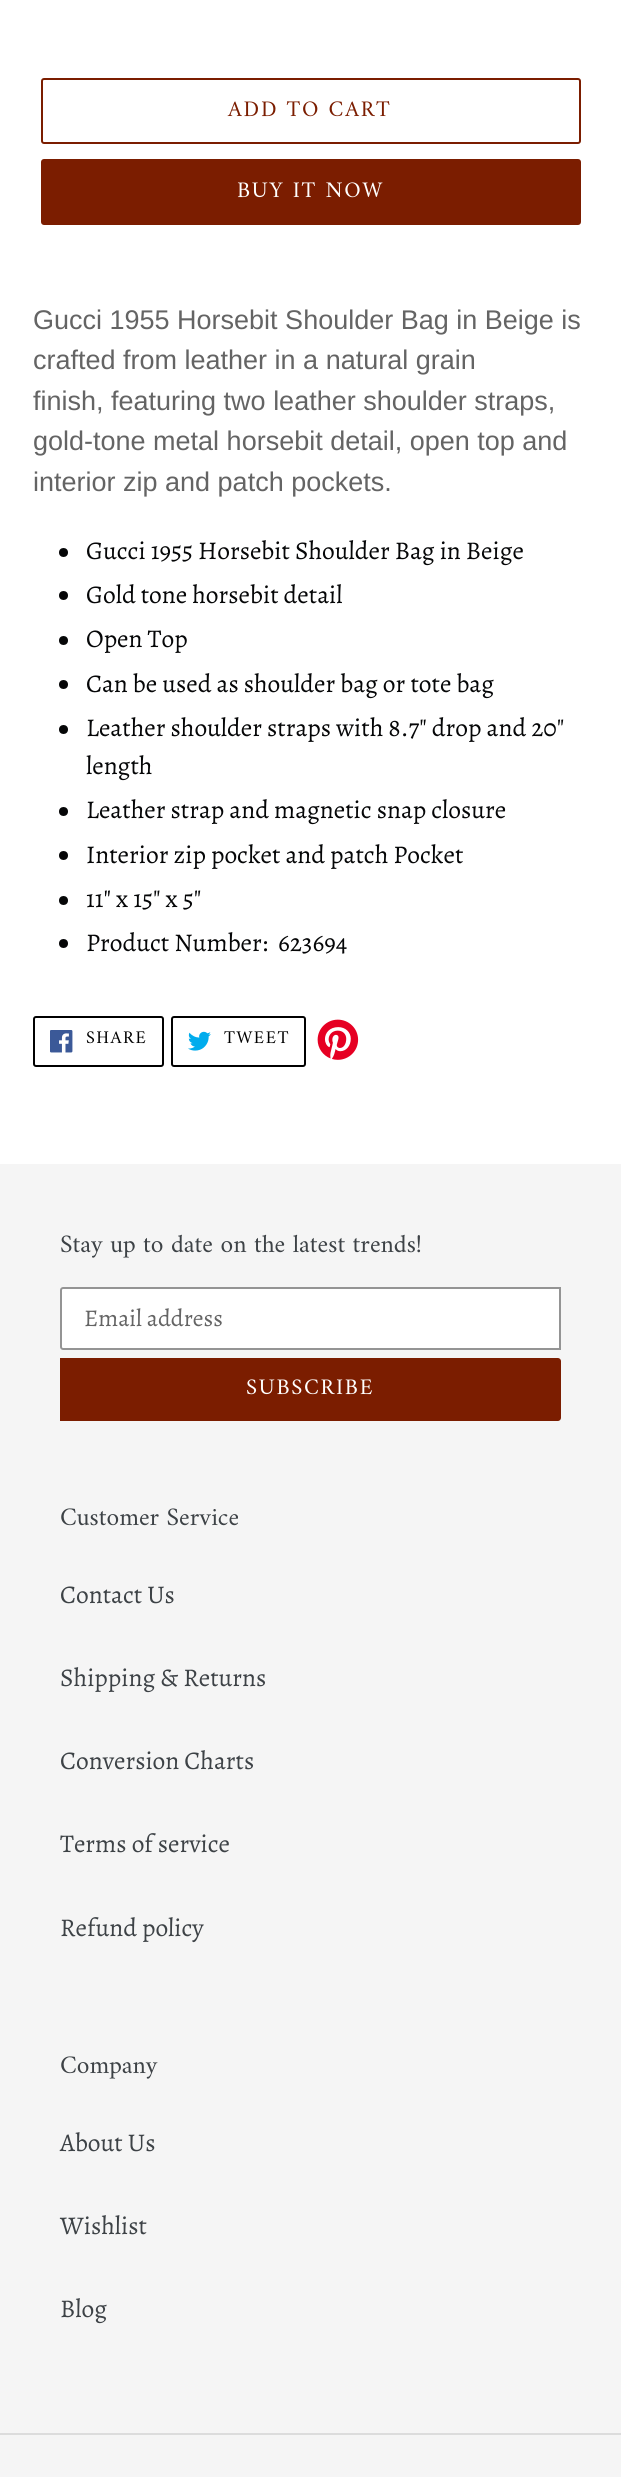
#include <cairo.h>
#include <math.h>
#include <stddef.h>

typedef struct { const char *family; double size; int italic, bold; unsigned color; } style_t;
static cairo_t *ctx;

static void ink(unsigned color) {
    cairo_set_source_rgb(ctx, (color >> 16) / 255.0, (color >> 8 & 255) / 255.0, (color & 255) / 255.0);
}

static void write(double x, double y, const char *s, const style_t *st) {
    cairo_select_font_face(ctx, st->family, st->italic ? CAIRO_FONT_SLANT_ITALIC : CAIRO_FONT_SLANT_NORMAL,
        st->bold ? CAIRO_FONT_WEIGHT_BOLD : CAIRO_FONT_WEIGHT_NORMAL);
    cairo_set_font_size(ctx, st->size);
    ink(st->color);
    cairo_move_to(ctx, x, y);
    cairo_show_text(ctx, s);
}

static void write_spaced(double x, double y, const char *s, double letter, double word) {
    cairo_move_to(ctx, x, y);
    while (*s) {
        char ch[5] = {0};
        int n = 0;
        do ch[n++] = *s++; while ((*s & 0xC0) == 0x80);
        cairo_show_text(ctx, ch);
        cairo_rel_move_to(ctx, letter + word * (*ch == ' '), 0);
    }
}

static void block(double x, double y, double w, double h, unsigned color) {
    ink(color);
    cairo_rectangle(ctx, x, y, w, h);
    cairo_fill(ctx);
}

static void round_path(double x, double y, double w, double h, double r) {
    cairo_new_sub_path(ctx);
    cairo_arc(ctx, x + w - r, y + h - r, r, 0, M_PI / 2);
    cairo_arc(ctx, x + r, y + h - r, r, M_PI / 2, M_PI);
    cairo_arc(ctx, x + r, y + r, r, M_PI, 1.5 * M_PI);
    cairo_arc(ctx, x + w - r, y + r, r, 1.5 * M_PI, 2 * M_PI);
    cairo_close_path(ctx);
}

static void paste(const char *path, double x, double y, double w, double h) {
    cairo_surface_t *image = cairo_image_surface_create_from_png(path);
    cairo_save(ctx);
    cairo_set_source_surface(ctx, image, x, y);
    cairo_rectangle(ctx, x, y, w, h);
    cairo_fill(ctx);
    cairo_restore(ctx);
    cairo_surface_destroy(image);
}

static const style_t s1 = {"Liberation Sans", 27, 0, 0, 0x646464};
static const style_t s2 = {"Alegreya", 25.5, 0, 0, 0x050607};
static const style_t s3 = {"Amiri", 25.5, 0, 0, 0x3d4246};
static const style_t s4 = {"Alegreya", 24, 0, 0, 0x646464};
static const style_t s5 = {"Alegreya", 25.5, 0, 0, 0x3d4246};

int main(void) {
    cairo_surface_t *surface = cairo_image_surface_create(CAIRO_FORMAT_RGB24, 621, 2477);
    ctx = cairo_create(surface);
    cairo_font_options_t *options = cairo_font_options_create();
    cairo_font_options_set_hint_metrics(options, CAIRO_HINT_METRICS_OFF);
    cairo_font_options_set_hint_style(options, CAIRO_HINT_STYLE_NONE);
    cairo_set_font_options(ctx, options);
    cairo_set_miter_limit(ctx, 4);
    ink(0xffffff);
    cairo_paint(ctx);
    round_path(42, 79, 538, 64, 2);
    ink(0x7b1d00);
    cairo_stroke(ctx);
    cairo_select_font_face(ctx, "Amiri", CAIRO_FONT_SLANT_NORMAL, CAIRO_FONT_WEIGHT_NORMAL);
    cairo_set_font_size(ctx, 22.5);
    write_spaced(228, 116, "ADD TO CART", 1.75, 0);
    round_path(41, 159, 540, 66, 3);
    cairo_fill(ctx);
    ink(0xffffff);
    write_spaced(237, 197, "BUY IT NOW", 1.75, 0);
    write(33, 329, "Gucci 1955 Horsebit Shoulder Bag in Beige is", &s1);
    write(33, 369, "crafted from leather in a natural grain", &s1);
    write(33, 410, "finish, featuring two leather shoulder straps,", &s1);
    write(33, 450, "gold-tone metal horsebit detail, open top and", &s1);
    write(33, 491, "interior zip and patch pockets.", &s1);
    ink(0x050607);
    cairo_new_path(ctx);
    cairo_arc(ctx, 63.5, 552.5, 4.5, 0, 2 * M_PI);
    cairo_fill(ctx);
    write(86, 559, "Gucci 1955 Horsebit Shoulder Bag in Beige", &s2);
    cairo_new_path(ctx);
    cairo_arc(ctx, 63.5, 595.5, 4.5, 0, 2 * M_PI);
    cairo_fill(ctx);
    write(86, 603, "Gold tone horsebit detail", &s2);
    cairo_new_path(ctx);
    cairo_arc(ctx, 63.5, 640.5, 4.5, 0, 2 * M_PI);
    cairo_fill(ctx);
    write(86, 647, "Open Top", &s2);
    cairo_new_path(ctx);
    cairo_arc(ctx, 63.5, 684.5, 4.5, 0, 2 * M_PI);
    cairo_fill(ctx);
    write(86, 692, "Can be used as shoulder bag or tote bag", &s2);
    cairo_new_path(ctx);
    cairo_arc(ctx, 63.5, 729.5, 4.5, 0, 2 * M_PI);
    cairo_fill(ctx);
    write(86, 736, "Leather shoulder straps with 8.7\" drop and 20\"", &s2);
    write(86, 774, "length", &s2);
    cairo_new_path(ctx);
    cairo_arc(ctx, 63.5, 811.5, 4.5, 0, 2 * M_PI);
    cairo_fill(ctx);
    write(86, 818, "Leather strap and magnetic snap closure", &s2);
    cairo_new_path(ctx);
    cairo_arc(ctx, 63.5, 855.5, 4.5, 0, 2 * M_PI);
    cairo_fill(ctx);
    write(86, 863, "Interior zip pocket and patch Pocket", &s2);
    cairo_new_path(ctx);
    cairo_arc(ctx, 63.5, 900.5, 4.5, 0, 2 * M_PI);
    cairo_fill(ctx);
    write(86, 907, "11\" x 15\" x 5\"", &s2);
    cairo_new_path(ctx);
    cairo_arc(ctx, 63.5, 943.5, 4.5, 0, 2 * M_PI);
    cairo_fill(ctx);
    write(86, 951, "Product Number:  623694", &s2);
    round_path(34, 1017, 129, 49, 2);
    ink(0x000000);
    cairo_stroke(ctx);
    paste("pic1.png", 50, 1030, 23, 23);
    cairo_select_font_face(ctx, "Amiri", CAIRO_FONT_SLANT_NORMAL, CAIRO_FONT_WEIGHT_NORMAL);
    cairo_set_font_size(ctx, 18);
    write_spaced(86, 1043, "SHARE", 1.5, 0);
    round_path(172, 1017, 133, 49, 2);
    cairo_stroke(ctx);
    paste("pic2.png", 188, 1031, 23, 20);
    write_spaced(224, 1043, "TWEET", 1.5, 0);
    paste("pic3.png", 317, 1019, 42, 41);
    block(0, 1164, 621, 1313, 0xf5f5f5);
    write(60, 1252, "Stay up to date on the latest trends!", &s3);
    ink(0xffffff);
    cairo_new_path(ctx);
    cairo_move_to(ctx, 63, 1288);
    cairo_line_to(ctx, 560, 1288);
    cairo_line_to(ctx, 560, 1349);
    cairo_line_to(ctx, 63, 1349);
    cairo_curve_to(ctx, 62, 1349, 61, 1348, 61, 1347);
    cairo_line_to(ctx, 61, 1290);
    cairo_curve_to(ctx, 61, 1289, 62, 1288, 63, 1288);
    cairo_close_path(ctx);
    cairo_fill_preserve(ctx);
    ink(0x949494);
    cairo_stroke(ctx);
    write(84, 1326, "Email address", &s4);
    ink(0x7b1d00);
    cairo_new_path(ctx);
    cairo_move_to(ctx, 60, 1358);
    cairo_line_to(ctx, 558, 1358);
    cairo_curve_to(ctx, 559.5, 1358, 561, 1359.5, 561, 1361);
    cairo_line_to(ctx, 561, 1418);
    cairo_curve_to(ctx, 561, 1419.5, 559.5, 1421, 558, 1421);
    cairo_line_to(ctx, 60, 1421);
    cairo_close_path(ctx);
    cairo_fill(ctx);
    cairo_select_font_face(ctx, "Amiri", CAIRO_FONT_SLANT_NORMAL, CAIRO_FONT_WEIGHT_NORMAL);
    cairo_set_font_size(ctx, 22.5);
    ink(0xffffff);
    write_spaced(246, 1394, "SUBSCRIBE", 1.75, 0);
    write(60, 1525, "Customer Service", &s3);
    write(60, 1603, "Contact Us", &s5);
    write(60, 1686, "Shipping & Returns", &s5);
    write(60, 1769, "Conversion Charts", &s5);
    write(60, 1852, "Terms of service", &s5);
    write(60, 1936, "Refund policy", &s5);
    write(60, 2073, "Company", &s3);
    write(60, 2151, "About Us", &s5);
    write(60, 2234, "Wishlist", &s5);
    write(60, 2317, "Blog", &s5);
    block(0, 2433, 621, 2, 0xdcdcdc);
    cairo_surface_write_to_png(surface, "screenshot.png");
    cairo_font_options_destroy(options);
    cairo_destroy(ctx);
    cairo_surface_destroy(surface);
    return 0;
}
